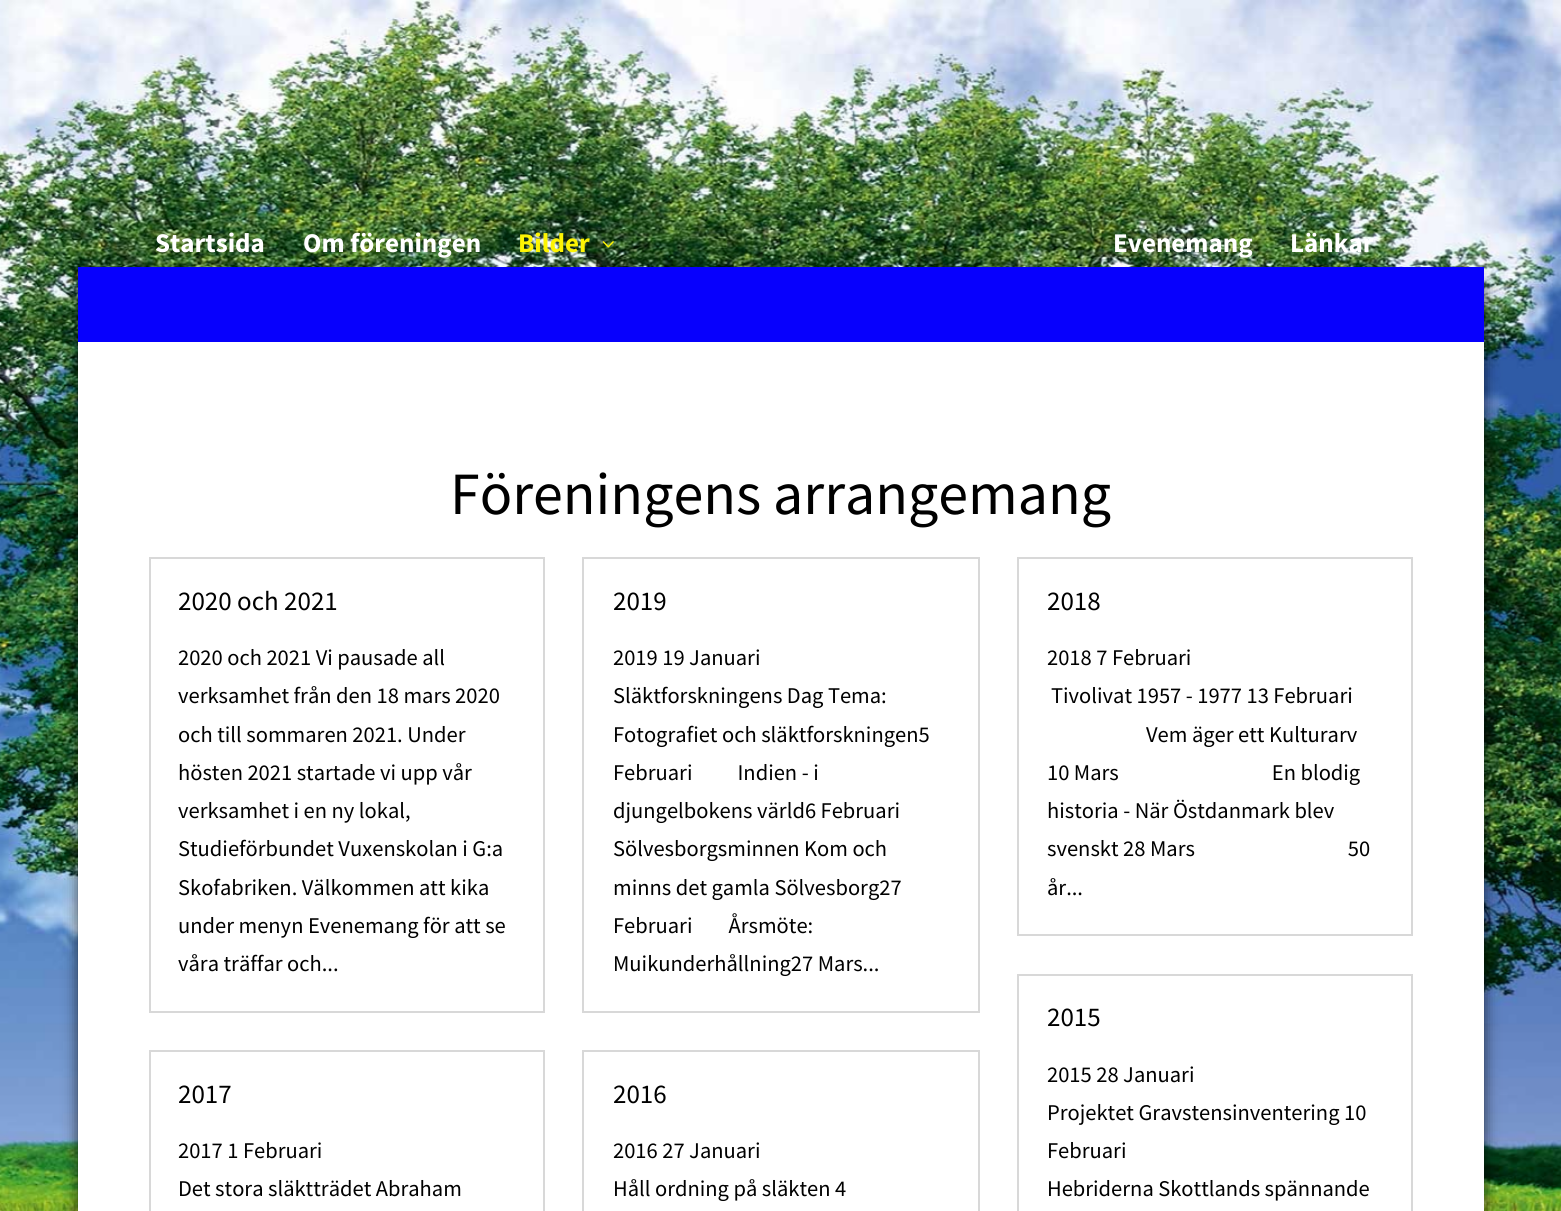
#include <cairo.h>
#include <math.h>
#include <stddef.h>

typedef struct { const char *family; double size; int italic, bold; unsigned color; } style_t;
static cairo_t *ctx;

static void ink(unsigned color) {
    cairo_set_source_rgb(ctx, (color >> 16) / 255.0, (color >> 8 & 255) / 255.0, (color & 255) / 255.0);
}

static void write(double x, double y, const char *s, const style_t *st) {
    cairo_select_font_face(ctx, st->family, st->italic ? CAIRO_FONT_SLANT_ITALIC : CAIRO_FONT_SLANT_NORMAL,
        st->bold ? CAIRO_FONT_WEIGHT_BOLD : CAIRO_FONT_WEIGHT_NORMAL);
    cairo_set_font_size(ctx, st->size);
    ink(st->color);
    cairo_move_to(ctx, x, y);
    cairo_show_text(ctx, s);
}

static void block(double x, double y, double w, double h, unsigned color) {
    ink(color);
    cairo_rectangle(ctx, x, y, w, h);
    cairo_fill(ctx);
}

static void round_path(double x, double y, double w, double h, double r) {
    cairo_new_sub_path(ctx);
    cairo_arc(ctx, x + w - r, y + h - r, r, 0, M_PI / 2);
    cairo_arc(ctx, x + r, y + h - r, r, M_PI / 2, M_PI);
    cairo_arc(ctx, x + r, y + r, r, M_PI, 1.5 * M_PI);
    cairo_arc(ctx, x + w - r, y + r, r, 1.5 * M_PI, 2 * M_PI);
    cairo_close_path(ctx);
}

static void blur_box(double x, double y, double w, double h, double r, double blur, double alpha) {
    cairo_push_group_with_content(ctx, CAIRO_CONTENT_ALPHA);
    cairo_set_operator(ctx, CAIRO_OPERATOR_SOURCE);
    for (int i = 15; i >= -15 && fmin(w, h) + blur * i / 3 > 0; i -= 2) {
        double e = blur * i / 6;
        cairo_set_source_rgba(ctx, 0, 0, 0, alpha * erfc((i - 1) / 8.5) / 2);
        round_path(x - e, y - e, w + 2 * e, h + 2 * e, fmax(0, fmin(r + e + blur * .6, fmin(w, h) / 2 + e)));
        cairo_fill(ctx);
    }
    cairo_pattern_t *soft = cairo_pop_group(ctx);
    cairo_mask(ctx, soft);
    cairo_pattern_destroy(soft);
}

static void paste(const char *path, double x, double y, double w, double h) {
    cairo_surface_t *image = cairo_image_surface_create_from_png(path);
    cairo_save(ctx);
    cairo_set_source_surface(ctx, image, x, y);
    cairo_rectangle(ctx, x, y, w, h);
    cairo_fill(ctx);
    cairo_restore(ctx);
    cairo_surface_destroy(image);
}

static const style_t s1 = {"Source Sans Pro", 27, 0, 1, 0xffffff};
static const style_t s2 = {"Source Sans Pro", 27, 0, 1, 0xfdf403};
static const style_t s3 = {"Source Sans Pro", 60, 0, 0, 0x000000};
static const style_t s4 = {"Source Sans Pro", 27, 0, 0, 0x000000};
static const style_t s5 = {"Source Sans Pro", 22.5, 0, 0, 0x000000};

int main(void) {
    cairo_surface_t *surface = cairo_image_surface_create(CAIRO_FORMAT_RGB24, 1561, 1211);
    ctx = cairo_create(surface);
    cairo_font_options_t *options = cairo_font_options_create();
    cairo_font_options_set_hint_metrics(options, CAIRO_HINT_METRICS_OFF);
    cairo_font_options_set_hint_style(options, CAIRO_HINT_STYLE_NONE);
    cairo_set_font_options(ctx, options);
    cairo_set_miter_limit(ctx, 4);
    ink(0xffffff);
    cairo_paint(ctx);
    paste("pic1.png", 0, 0, 1561, 1211);
    ink(0x000000);
    blur_box(78, 285, 1406, 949, 0, 7.5, 0.7);
    block(78, 267, 1406, 75, 0x0700fd);
    write(155, 252, "Startsida", &s1);
    write(303, 252, "Om föreningen", &s1);
    write(518, 252, "Bilder", &s2);
    paste("pic2.png", 602, 241, 12, 7);
    write(1113, 252, "Evenemang", &s1);
    write(1290, 252, "Länkar", &s1);
    block(78, 342, 1406, 869, 0xffffff);
    write(450, 514, "Föreningens arrangemang", &s3);
    cairo_rectangle(ctx, 150, 558, 394, 454);
    ink(0xd8d8d8);
    cairo_stroke(ctx);
    write(178, 610, "2020 och 2021", &s4);
    write(178, 665, "2020 och 2021 Vi pausade all", &s5);
    write(178, 703, "verksamhet från den 18 mars 2020", &s5);
    write(178, 742, "och till sommaren 2021. Under", &s5);
    write(178, 780, "hösten 2021 startade vi upp vår", &s5);
    write(178, 818, "verksamhet i en ny lokal,", &s5);
    write(178, 856, "Studieförbundet Vuxenskolan i G:a", &s5);
    write(178, 895, "Skofabriken. Välkommen att kika", &s5);
    write(178, 933, "under menyn Evenemang för att se", &s5);
    write(178, 971, "våra träffar och...", &s5);
    cairo_rectangle(ctx, 150, 1051, 394, 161);
    ink(0xd8d8d8);
    cairo_stroke(ctx);
    write(178, 1103, "2017", &s4);
    write(178, 1158, "2017 1 Februari", &s5);
    write(178, 1196, "Det stora släktträdet Abraham", &s5);
    cairo_rectangle(ctx, 583, 558, 396, 454);
    ink(0xd8d8d8);
    cairo_stroke(ctx);
    write(613, 610, "2019", &s4);
    write(613, 665, "2019 19 Januari", &s5);
    write(613, 703, "Släktforskningens Dag Tema:", &s5);
    write(613, 742, "Fotografiet och släktforskningen5", &s5);
    write(613, 780, "Februari          Indien - i", &s5);
    write(613, 818, "djungelbokens värld6 Februari", &s5);
    write(613, 856, "Sölvesborgsminnen Kom och", &s5);
    write(613, 895, "minns det gamla Sölvesborg27", &s5);
    write(613, 933, "Februari        Årsmöte:", &s5);
    write(613, 971, "Muikunderhållning27 Mars...", &s5);
    cairo_rectangle(ctx, 583, 1051, 396, 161);
    ink(0xd8d8d8);
    cairo_stroke(ctx);
    write(613, 1103, "2016", &s4);
    write(613, 1158, "2016 27 Januari", &s5);
    write(613, 1196, "Håll ordning på släkten 4", &s5);
    cairo_rectangle(ctx, 1018, 558, 394, 377);
    ink(0xd8d8d8);
    cairo_stroke(ctx);
    write(1047, 610, "2018", &s4);
    write(1047, 665, "2018 7 Februari", &s5);
    write(1051, 703, "Tivolivat 1957 - 1977 13 Februari", &s5);
    write(1146, 742, "Vem äger ett Kulturarv", &s5);
    write(1047, 780, "10 Mars                                  En blodig", &s5);
    write(1047, 818, "historia - När Östdanmark blev", &s5);
    write(1047, 856, "svenskt 28 Mars                                  50", &s5);
    write(1047, 895, "år...", &s5);
    cairo_rectangle(ctx, 1018, 975, 394, 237);
    ink(0xd8d8d8);
    cairo_stroke(ctx);
    write(1047, 1026, "2015", &s4);
    write(1047, 1082, "2015 28 Januari", &s5);
    write(1047, 1120, "Projektet Gravstensinventering 10", &s5);
    write(1047, 1158, "Februari", &s5);
    write(1047, 1196, "Hebriderna Skottlands spännande", &s5);
    cairo_surface_write_to_png(surface, "screenshot.png");
    cairo_font_options_destroy(options);
    cairo_destroy(ctx);
    cairo_surface_destroy(surface);
    return 0;
}
